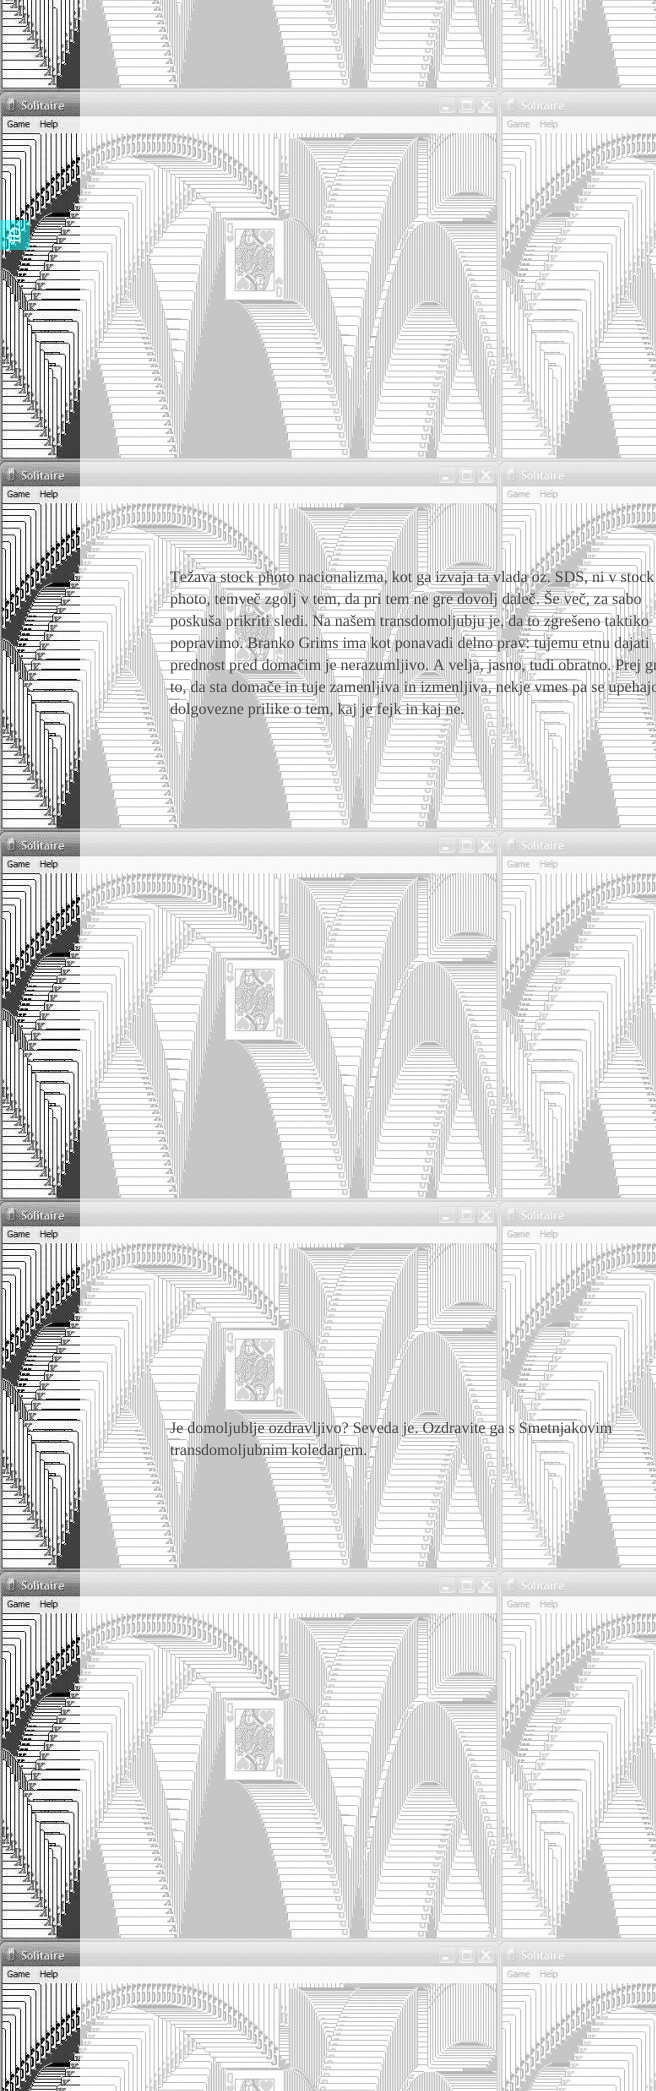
#include <cairo.h>
#include <math.h>
#include <stddef.h>

typedef struct { const char *family; double size; int italic, bold; unsigned color; } style_t;
static cairo_t *ctx;

static void ink(unsigned color) {
    cairo_set_source_rgb(ctx, (color >> 16) / 255.0, (color >> 8 & 255) / 255.0, (color & 255) / 255.0);
}

static void write(double x, double y, const char *s, const style_t *st) {
    cairo_select_font_face(ctx, st->family, st->italic ? CAIRO_FONT_SLANT_ITALIC : CAIRO_FONT_SLANT_NORMAL,
        st->bold ? CAIRO_FONT_WEIGHT_BOLD : CAIRO_FONT_WEIGHT_NORMAL);
    cairo_set_font_size(ctx, st->size);
    ink(st->color);
    cairo_move_to(ctx, x, y);
    cairo_show_text(ctx, s);
}

static void paste(const char *path, double x, double y, double w, double h) {
    cairo_surface_t *image = cairo_image_surface_create_from_png(path);
    cairo_save(ctx);
    cairo_set_source_surface(ctx, image, x, y);
    cairo_rectangle(ctx, x, y, w, h);
    cairo_fill(ctx);
    cairo_restore(ctx);
    cairo_surface_destroy(image);
}

static const style_t s1 = {"Liberation Serif", 16, 0, 0, 0x464646};

int main(void) {
    cairo_surface_t *surface = cairo_image_surface_create(CAIRO_FORMAT_RGB24, 656, 2091);
    ctx = cairo_create(surface);
    cairo_font_options_t *options = cairo_font_options_create();
    cairo_font_options_set_hint_metrics(options, CAIRO_HINT_METRICS_OFF);
    cairo_font_options_set_hint_style(options, CAIRO_HINT_STYLE_NONE);
    cairo_set_font_options(ctx, options);
    cairo_set_miter_limit(ctx, 4);
    ink(0xffffff);
    cairo_paint(ctx);
    paste("pic1.png", 0, 0, 656, 2091);
    cairo_set_source_rgba(ctx, 0, 1, 1, 0.5);
    cairo_rectangle(ctx, 0, 220, 30, 30);
    cairo_fill(ctx);
    paste("pic2.png", 9, 227, 12, 16);
    cairo_set_source_rgba(ctx, 1, 1, 1, 0.7);
    cairo_rectangle(ctx, 80, 0, 576, 2091);
    cairo_fill(ctx);
    write(170, 582, "Težava stock photo nacionalizma, kot ga izvaja ta vlada oz. SDS, ni v stock", &s1);
    write(170, 604, "photo, temveč zgolj v tem, da pri tem ne gre dovolj daleč. Še več, za sabo", &s1);
    write(170, 626, "poskuša prikriti sledi. Na našem transdomoljubju je, da to zgrešeno taktiko", &s1);
    write(170, 648, "popravimo. Branko Grims ima kot ponavadi delno prav: tujemu etnu dajati", &s1);
    write(170, 670, "prednost pred domačim je nerazumljivo. A velja, jasno, tudi obratno. Prej gr", &s1);
    write(170, 692, "to, da sta domače in tuje zamenljiva in izmenljiva, nekje vmes pa se upehajo", &s1);
    write(170, 714, "dolgovezne prilike o tem, kaj je fejk in kaj ne.", &s1);
    write(170, 1433, "Je domoljublje ozdravljivo? Seveda je. Ozdravite ga s Smetnjakovim", &s1);
    write(170, 1455, "transdomoljubnim koledarjem.", &s1);
    cairo_surface_write_to_png(surface, "screenshot.png");
    cairo_font_options_destroy(options);
    cairo_destroy(ctx);
    cairo_surface_destroy(surface);
    return 0;
}
